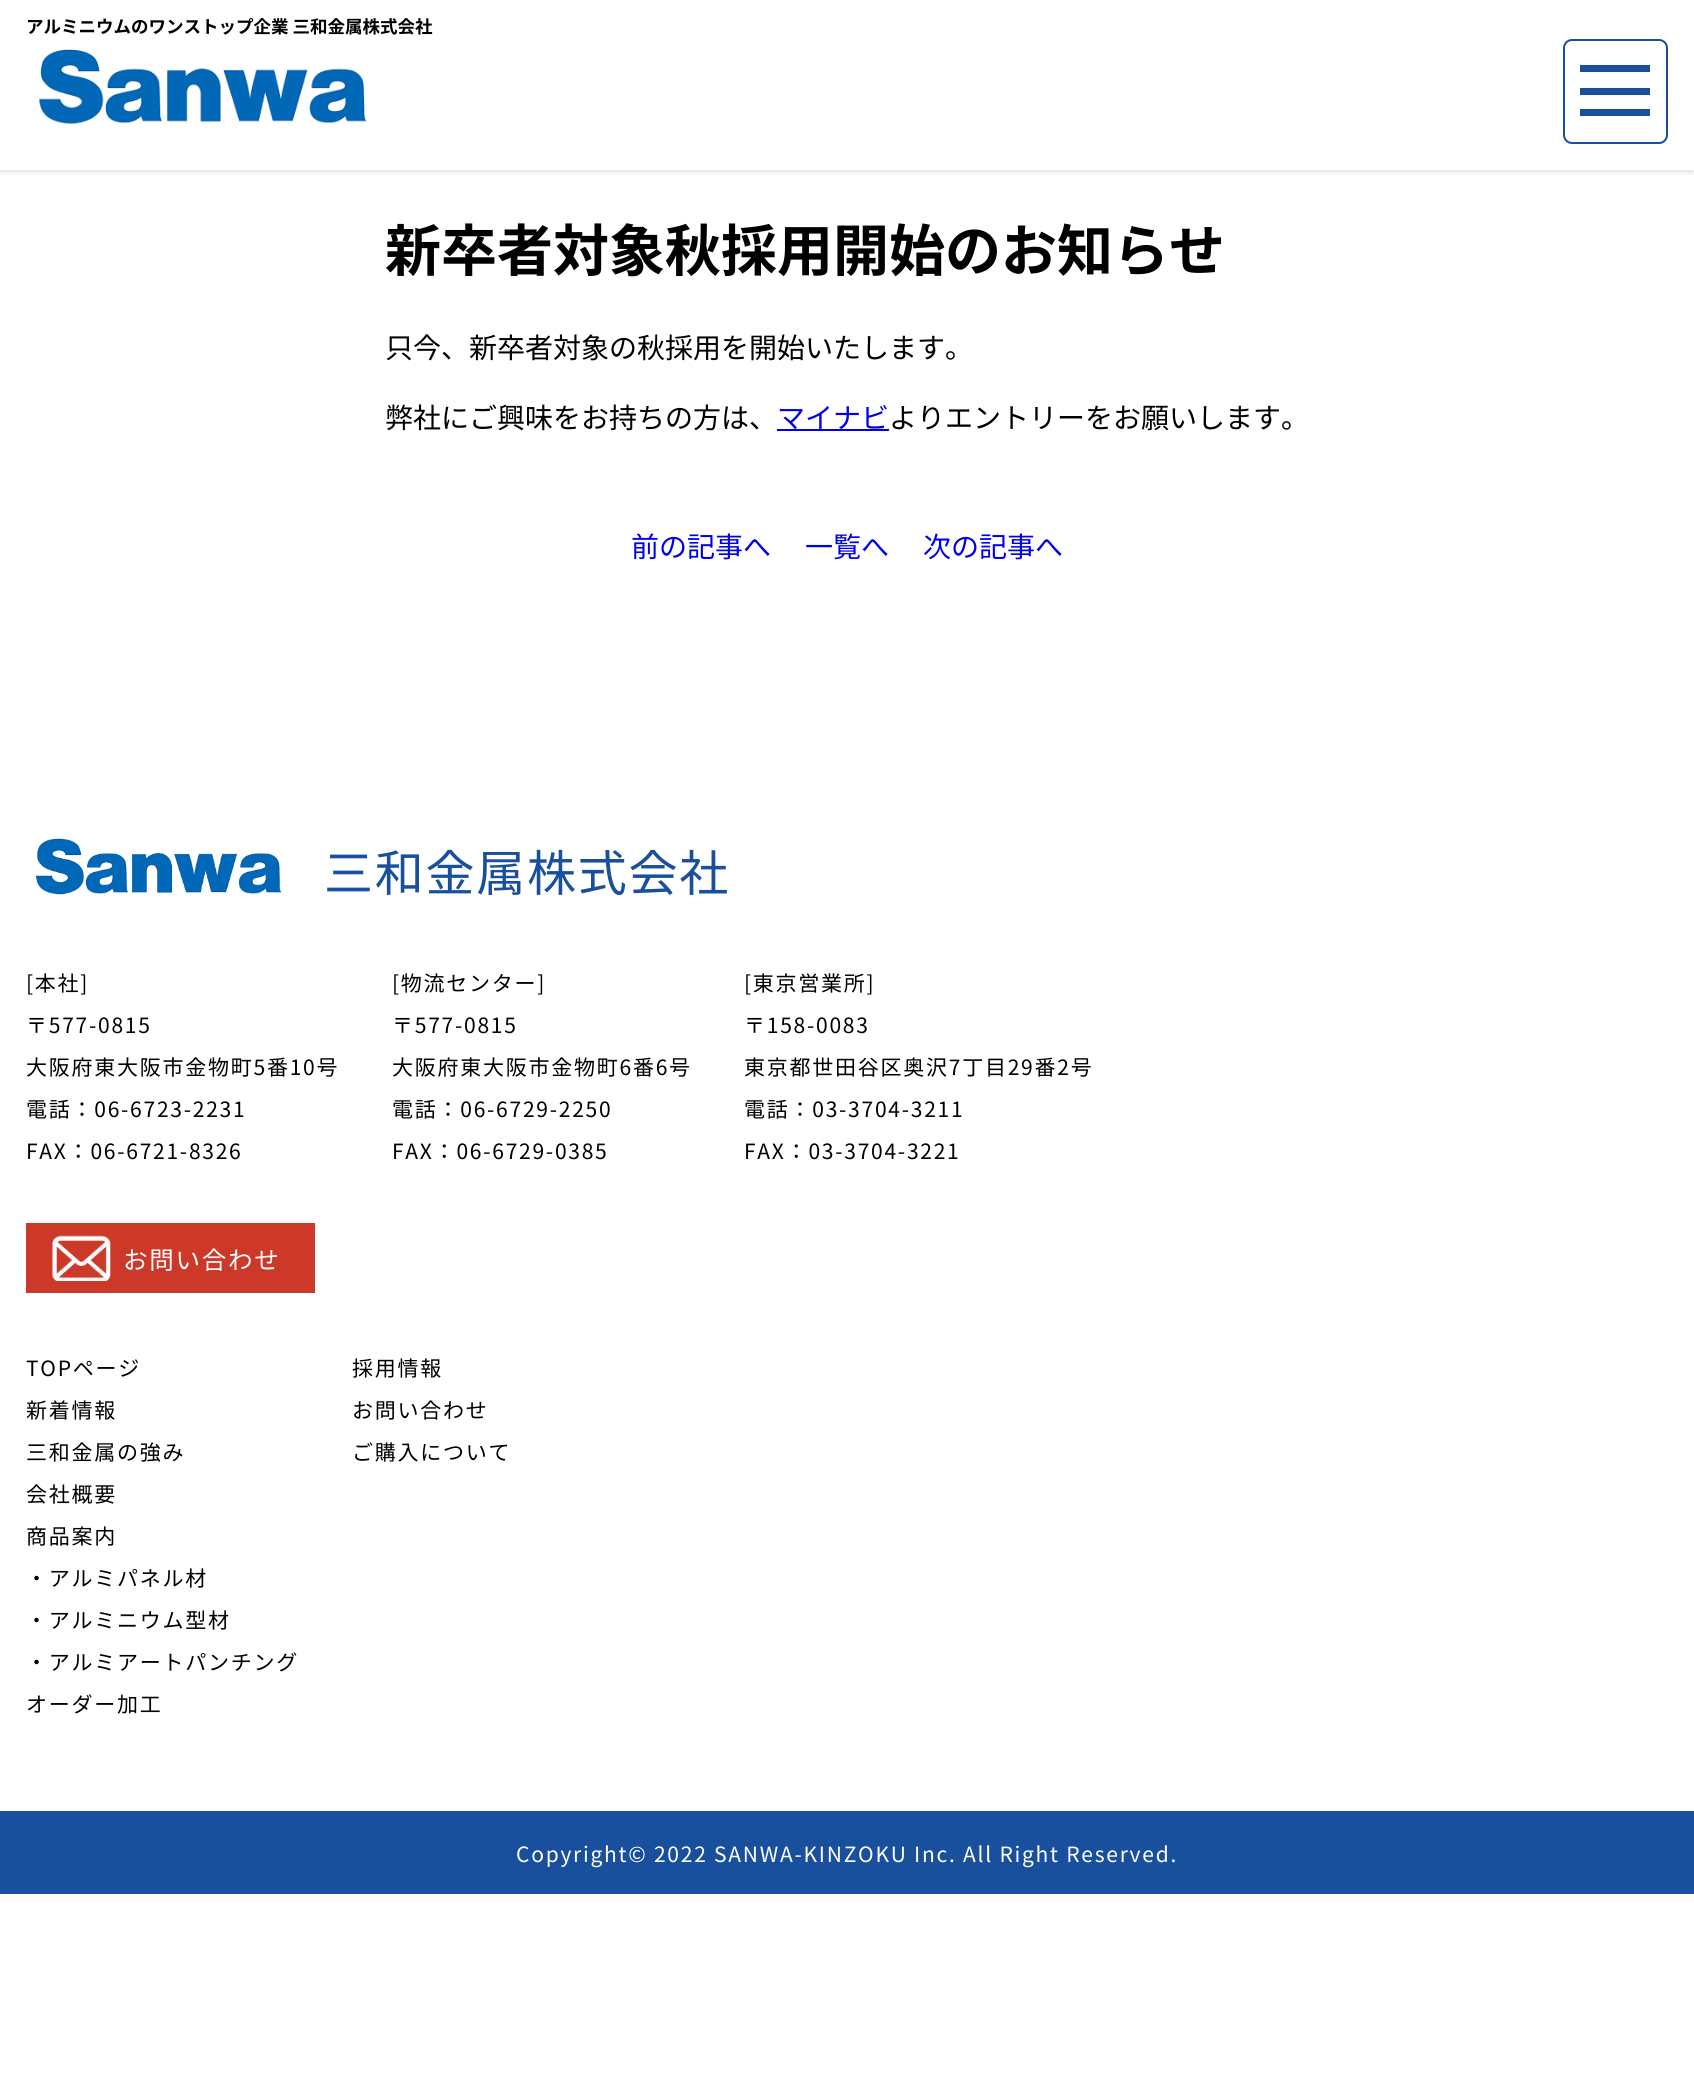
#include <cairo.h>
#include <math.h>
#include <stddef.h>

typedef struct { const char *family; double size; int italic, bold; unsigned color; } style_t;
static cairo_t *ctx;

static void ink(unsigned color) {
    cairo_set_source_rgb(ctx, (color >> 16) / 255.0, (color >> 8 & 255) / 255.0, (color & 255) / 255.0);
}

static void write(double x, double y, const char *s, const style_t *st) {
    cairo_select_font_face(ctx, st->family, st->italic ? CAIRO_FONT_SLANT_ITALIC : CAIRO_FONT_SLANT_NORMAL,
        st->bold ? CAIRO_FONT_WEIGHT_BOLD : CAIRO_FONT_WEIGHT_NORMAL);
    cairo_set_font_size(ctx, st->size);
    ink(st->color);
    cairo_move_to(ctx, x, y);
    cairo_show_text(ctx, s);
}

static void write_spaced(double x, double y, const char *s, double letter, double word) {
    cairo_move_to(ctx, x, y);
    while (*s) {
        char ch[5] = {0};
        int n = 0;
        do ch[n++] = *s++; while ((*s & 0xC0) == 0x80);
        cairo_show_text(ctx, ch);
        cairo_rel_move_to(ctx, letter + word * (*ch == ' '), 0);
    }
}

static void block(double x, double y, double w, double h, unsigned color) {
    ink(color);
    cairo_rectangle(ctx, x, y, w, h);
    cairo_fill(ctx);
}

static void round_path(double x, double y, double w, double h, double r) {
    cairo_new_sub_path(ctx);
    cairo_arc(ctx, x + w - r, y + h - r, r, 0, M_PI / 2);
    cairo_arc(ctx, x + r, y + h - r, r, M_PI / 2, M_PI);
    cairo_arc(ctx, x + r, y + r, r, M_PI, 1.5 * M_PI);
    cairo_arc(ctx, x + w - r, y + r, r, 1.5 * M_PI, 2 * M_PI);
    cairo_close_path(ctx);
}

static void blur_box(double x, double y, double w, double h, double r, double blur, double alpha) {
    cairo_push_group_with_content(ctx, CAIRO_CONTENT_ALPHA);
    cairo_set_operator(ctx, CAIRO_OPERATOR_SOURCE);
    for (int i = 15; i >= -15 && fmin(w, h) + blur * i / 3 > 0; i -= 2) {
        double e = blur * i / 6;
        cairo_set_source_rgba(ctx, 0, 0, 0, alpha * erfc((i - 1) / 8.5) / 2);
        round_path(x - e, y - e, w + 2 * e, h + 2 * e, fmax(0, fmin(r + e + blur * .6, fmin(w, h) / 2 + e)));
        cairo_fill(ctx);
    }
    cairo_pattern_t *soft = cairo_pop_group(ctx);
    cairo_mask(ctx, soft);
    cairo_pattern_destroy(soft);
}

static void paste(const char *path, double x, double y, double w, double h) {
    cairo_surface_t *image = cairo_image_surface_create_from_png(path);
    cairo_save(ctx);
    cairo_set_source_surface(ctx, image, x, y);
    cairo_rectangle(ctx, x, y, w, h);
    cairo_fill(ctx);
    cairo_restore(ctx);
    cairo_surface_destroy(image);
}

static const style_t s1 = {"Noto Sans JP", 17.5, 0, 1, 0x000000};
static const style_t s2 = {"Noto Sans JP", 56, 0, 1, 0x000000};
static const style_t s3 = {"Noto Sans JP", 28, 0, 0, 0x000000};
static const style_t s4 = {"Noto Sans JP", 28, 0, 0, 0x0000ee};

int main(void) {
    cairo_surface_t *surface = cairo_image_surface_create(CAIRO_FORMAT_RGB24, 1694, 2077);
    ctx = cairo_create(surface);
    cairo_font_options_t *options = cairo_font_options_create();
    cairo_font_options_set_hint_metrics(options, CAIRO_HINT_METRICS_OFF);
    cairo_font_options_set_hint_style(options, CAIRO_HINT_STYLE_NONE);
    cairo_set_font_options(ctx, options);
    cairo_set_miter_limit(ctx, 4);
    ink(0xffffff);
    cairo_paint(ctx);
    ink(0x000000);
    blur_box(0, 4, 1694, 169, 0, 2, 0.1);
    block(0, 1, 1694, 169, 0xffffff);
    write(26, 33, "アルミニウムのワンストップ企業 三和金属株式会社", &s1);
    paste("pic1.png", 39, 49, 328, 76);
    round_path(1564, 40, 103, 103, 8);
    ink(0x19509d);
    cairo_stroke(ctx);
    block(1580, 88, 70, 7, 0x19509d);
    block(1580, 65, 70, 7, 0x19509d);
    block(1580, 109, 70, 7, 0x19509d);
    write(385, 271, "新卒者対象秋採用開始のお知らせ", &s2);
    write(385, 358, "只今、新卒者対象の秋採用を開始いたします。", &s3);
    write(385, 428, "弊社にご興味をお持ちの方は、", &s3);
    block(777, 429, 112, 2, 0x0000ee);
    write(777, 428, "マイナビ", &s4);
    write(889, 428, "よりエントリーをお願いします。", &s3);
    write(631, 557, "前の記事へ", &s4);
    write(805, 557, "一覧へ", &s4);
    write(923, 557, "次の記事へ", &s4);
    paste("pic2.png", 36, 838, 246, 57);
    cairo_set_font_size(ctx, 49);
    ink(0x19509d);
    write_spaced(324, 891, "三和金属株式会社", 1.75, 0);
    cairo_set_font_size(ctx, 21);
    ink(0x000000);
    write_spaced(26, 991, "[本社]", 1.75, 0);
    write_spaced(26, 1033, "〒577-0815", 1.75, 0);
    write_spaced(26, 1075, "大阪府東大阪市金物町5番10号", 1.75, 0);
    write_spaced(26, 1117, "電話：06-6723-2231", 1.75, 0);
    write_spaced(26, 1159, "FAX：06-6721-8326", 1.75, 0);
    write_spaced(392, 991, "[物流センター]", 1.75, 0);
    write_spaced(392, 1033, "〒577-0815", 1.75, 0);
    write_spaced(392, 1075, "大阪府東大阪市金物町6番6号", 1.75, 0);
    write_spaced(392, 1117, "電話：06-6729-2250", 1.75, 0);
    write_spaced(392, 1159, "FAX：06-6729-0385", 1.75, 0);
    write_spaced(744, 991, "[東京営業所]", 1.75, 0);
    write_spaced(744, 1033, "〒158-0083", 1.75, 0);
    write_spaced(744, 1075, "東京都世田谷区奥沢7丁目29番2号", 1.75, 0);
    write_spaced(744, 1117, "電話：03-3704-3211", 1.75, 0);
    write_spaced(744, 1159, "FAX：03-3704-3221", 1.75, 0);
    block(26, 1223, 289, 70, 0xcc3929);
    paste("pic3.png", 52, 1235, 59, 46);
    cairo_set_font_size(ctx, 24.5);
    ink(0xffffff);
    write_spaced(123, 1269, "お問い合わせ", 1.75, 0);
    cairo_set_font_size(ctx, 21);
    ink(0x000000);
    write_spaced(26, 1376, "TOPページ", 1.75, 0);
    write_spaced(26, 1418, "新着情報", 1.75, 0);
    write_spaced(26, 1460, "三和金属の強み", 1.75, 0);
    write_spaced(26, 1502, "会社概要", 1.75, 0);
    write_spaced(26, 1544, "商品案内", 1.75, 0);
    write_spaced(26, 1586, "・アルミパネル材", 1.75, 0);
    write_spaced(26, 1628, "・アルミニウム型材", 1.75, 0);
    write_spaced(26, 1670, "・アルミアートパンチング", 1.75, 0);
    write_spaced(26, 1712, "オーダー加工", 1.75, 0);
    write_spaced(352, 1376, "採用情報", 1.75, 0);
    write_spaced(352, 1418, "お問い合わせ", 1.75, 0);
    write_spaced(352, 1460, "ご購入について", 1.75, 0);
    block(0, 1811, 1694, 83, 0x19509d);
    ink(0xffffff);
    write_spaced(516, 1862, "Copyright© 2022 SANWA-KINZOKU Inc. All Right Reserved.", 1.75, 0);
    cairo_surface_write_to_png(surface, "screenshot.png");
    cairo_font_options_destroy(options);
    cairo_destroy(ctx);
    cairo_surface_destroy(surface);
    return 0;
}
